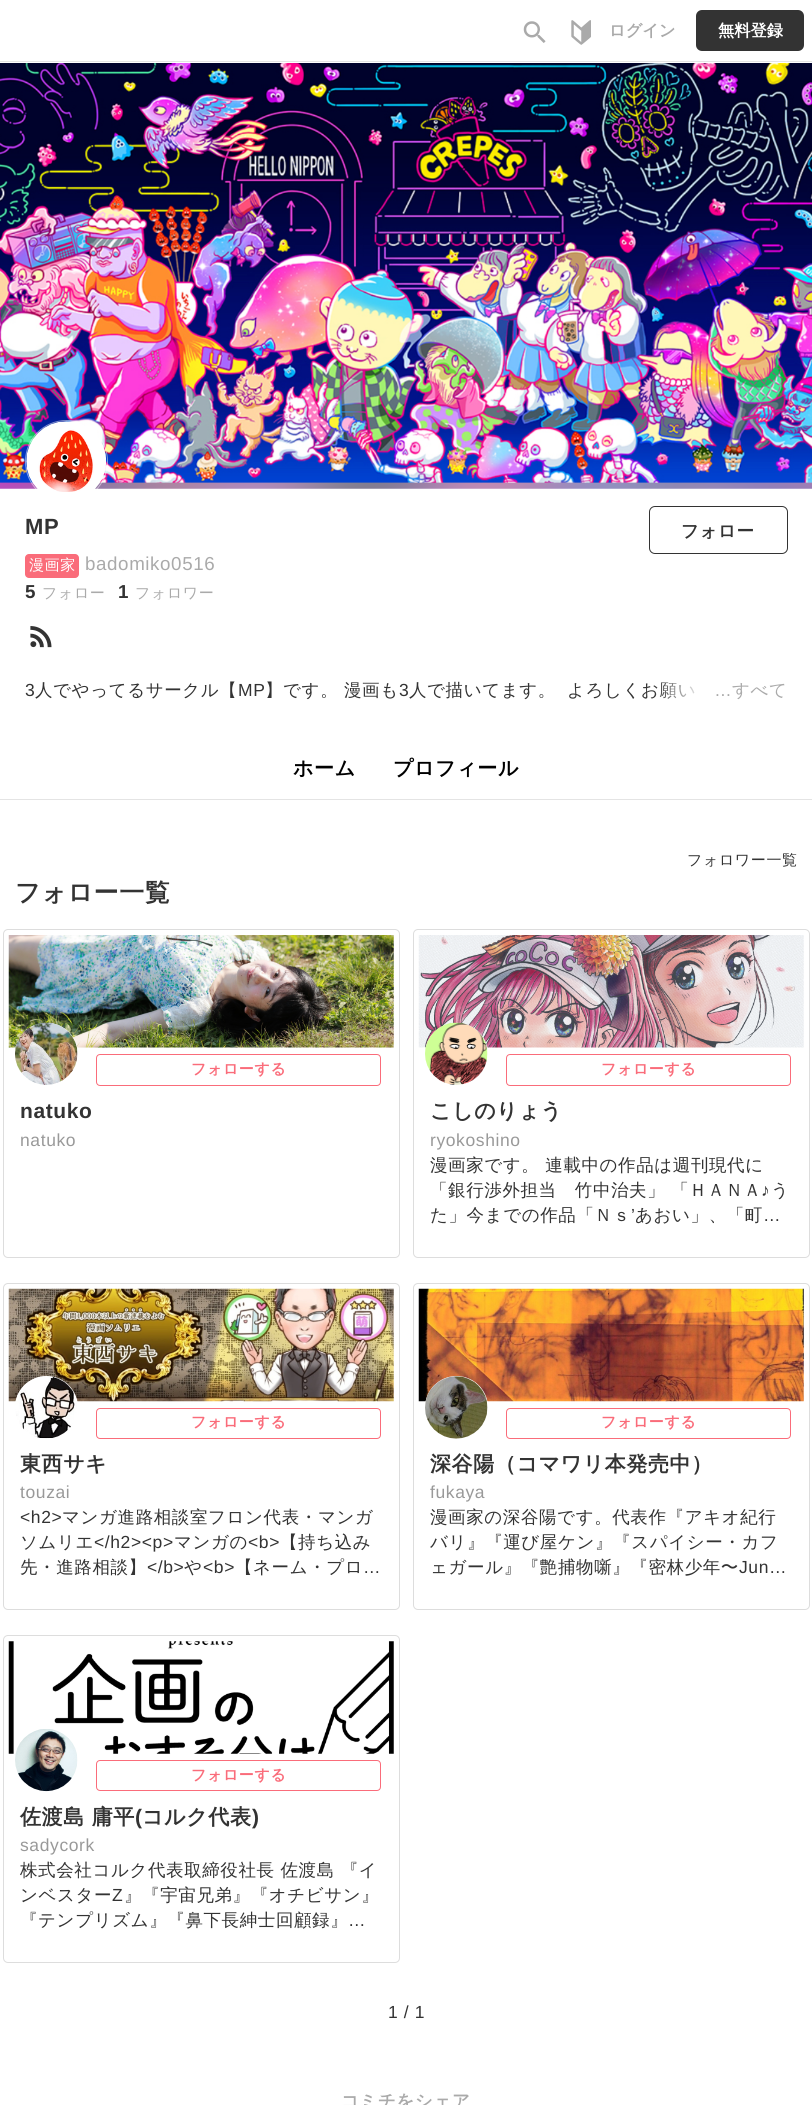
#include <cairo.h>
#include <math.h>
#include <stddef.h>

typedef struct { const char *family; double size; int italic, bold; unsigned color; } style_t;
static cairo_t *ctx;

static void ink(unsigned color) {
    cairo_set_source_rgb(ctx, (color >> 16) / 255.0, (color >> 8 & 255) / 255.0, (color & 255) / 255.0);
}

static void write(double x, double y, const char *s, const style_t *st) {
    cairo_select_font_face(ctx, st->family, st->italic ? CAIRO_FONT_SLANT_ITALIC : CAIRO_FONT_SLANT_NORMAL,
        st->bold ? CAIRO_FONT_WEIGHT_BOLD : CAIRO_FONT_WEIGHT_NORMAL);
    cairo_set_font_size(ctx, st->size);
    ink(st->color);
    cairo_move_to(ctx, x, y);
    cairo_show_text(ctx, s);
}

static void write_spaced(double x, double y, const char *s, double letter, double word) {
    cairo_move_to(ctx, x, y);
    while (*s) {
        char ch[5] = {0};
        int n = 0;
        do ch[n++] = *s++; while ((*s & 0xC0) == 0x80);
        cairo_show_text(ctx, ch);
        cairo_rel_move_to(ctx, letter + word * (*ch == ' '), 0);
    }
}

static void block(double x, double y, double w, double h, unsigned color) {
    ink(color);
    cairo_rectangle(ctx, x, y, w, h);
    cairo_fill(ctx);
}

static void round_path(double x, double y, double w, double h, double r) {
    cairo_new_sub_path(ctx);
    cairo_arc(ctx, x + w - r, y + h - r, r, 0, M_PI / 2);
    cairo_arc(ctx, x + r, y + h - r, r, M_PI / 2, M_PI);
    cairo_arc(ctx, x + r, y + r, r, M_PI, 1.5 * M_PI);
    cairo_arc(ctx, x + w - r, y + r, r, 1.5 * M_PI, 2 * M_PI);
    cairo_close_path(ctx);
}

static void paste(const char *path, double x, double y, double w, double h) {
    cairo_surface_t *image = cairo_image_surface_create_from_png(path);
    cairo_save(ctx);
    cairo_set_source_surface(ctx, image, x, y);
    cairo_rectangle(ctx, x, y, w, h);
    cairo_fill(ctx);
    cairo_restore(ctx);
    cairo_surface_destroy(image);
}

static const style_t s1 = {"WenQuanYi Zen Hei", 16.25, 0, 1, 0xaaaaaa};
static const style_t s2 = {"WenQuanYi Zen Hei", 16.25, 0, 1, 0xffffff};

int main(void) {
    cairo_surface_t *surface = cairo_image_surface_create(CAIRO_FORMAT_RGB24, 812, 2105);
    ctx = cairo_create(surface);
    cairo_font_options_t *options = cairo_font_options_create();
    cairo_font_options_set_hint_metrics(options, CAIRO_HINT_METRICS_OFF);
    cairo_font_options_set_hint_style(options, CAIRO_HINT_STYLE_NONE);
    cairo_set_font_options(ctx, options);
    cairo_set_miter_limit(ctx, 4);
    cairo_pattern_t *gradient;
    ink(0xffffff);
    cairo_paint(ctx);
    block(0, 61, 812, 1, 0xe4e4e4);
    paste("pic1.png", 523, 21, 23, 22);
    paste("pic2.png", 571, 20, 20, 25);
    write(609, 36, "ログイン", &s1);
    ink(0x333333);
    round_path(696, 10, 108, 41, 6);
    cairo_fill(ctx);
    write(718, 36, "無料登録", &s2);
    paste("pic4.png", 0, 482, 812, 7);
    paste("pic3.png", 0, 63, 812, 420);
    cairo_arc(ctx, 66.5, 461.5, 41, 0, 2 * M_PI);
    cairo_set_source_rgba(ctx, 1, 1, 1, 0.5);
    cairo_set_line_width(ctx, 1);
    cairo_stroke(ctx);
    paste("pic5.png", 26, 421, 81, 71);
    cairo_select_font_face(ctx, "Liberation Sans", CAIRO_FONT_SLANT_NORMAL, CAIRO_FONT_WEIGHT_BOLD);
    cairo_set_font_size(ctx, 22);
    ink(0x333333);
    write_spaced(25, 534, "MP", 0.6, 0);
    ink(0xfa6c7a);
    round_path(25, 554, 54, 24, 4);
    cairo_fill(ctx);
    cairo_select_font_face(ctx, "WenQuanYi Zen Hei Medium", CAIRO_FONT_SLANT_NORMAL, CAIRO_FONT_WEIGHT_NORMAL);
    cairo_set_font_size(ctx, 15);
    ink(0xffffff);
    write_spaced(29, 570, "漫画家", 0.6, 0);
    cairo_select_font_face(ctx, "Liberation Sans", CAIRO_FONT_SLANT_NORMAL, CAIRO_FONT_WEIGHT_NORMAL);
    cairo_set_font_size(ctx, 18.75);
    ink(0xaaaaaa);
    write_spaced(85, 570, "badomiko0516", 0.6, 0);
    cairo_select_font_face(ctx, "Liberation Sans", CAIRO_FONT_SLANT_NORMAL, CAIRO_FONT_WEIGHT_BOLD);
    ink(0x333333);
    write_spaced(25, 598, "5", 0.6, 0);
    cairo_select_font_face(ctx, "WenQuanYi Zen Hei Medium", CAIRO_FONT_SLANT_NORMAL, CAIRO_FONT_WEIGHT_NORMAL);
    cairo_set_font_size(ctx, 15);
    ink(0xaaaaaa);
    write_spaced(42, 598, "フォロー", 0.6, 0);
    cairo_select_font_face(ctx, "Liberation Sans", CAIRO_FONT_SLANT_NORMAL, CAIRO_FONT_WEIGHT_BOLD);
    cairo_set_font_size(ctx, 18.75);
    ink(0x333333);
    write_spaced(118, 598, "1", 0.6, 0);
    cairo_select_font_face(ctx, "WenQuanYi Zen Hei Medium", CAIRO_FONT_SLANT_NORMAL, CAIRO_FONT_WEIGHT_NORMAL);
    cairo_set_font_size(ctx, 15);
    ink(0xaaaaaa);
    write_spaced(135, 598, "フォロワー", 0.6, 0);
    round_path(649.5, 506.5, 138, 47, 5.5);
    ink(0x333333);
    cairo_stroke(ctx);
    cairo_select_font_face(ctx, "WenQuanYi Zen Hei", CAIRO_FONT_SLANT_NORMAL, CAIRO_FONT_WEIGHT_BOLD);
    cairo_set_font_size(ctx, 17.5);
    write_spaced(681, 537, "フォロー", 0.6, 0);
    paste("pic6.png", 30, 626, 22, 22);
    cairo_select_font_face(ctx, "Liberation Sans", CAIRO_FONT_SLANT_NORMAL, CAIRO_FONT_WEIGHT_NORMAL);
    write_spaced(25, 696, "3", 0.6, 0);
    cairo_select_font_face(ctx, "WenQuanYi Zen Hei Medium", CAIRO_FONT_SLANT_NORMAL, CAIRO_FONT_WEIGHT_NORMAL);
    write_spaced(35, 696, "人でやってるサークル【", 0.6, 0);
    cairo_select_font_face(ctx, "Liberation Sans", CAIRO_FONT_SLANT_NORMAL, CAIRO_FONT_WEIGHT_NORMAL);
    write_spaced(238, 696, "MP", 0.6, 0);
    cairo_select_font_face(ctx, "WenQuanYi Zen Hei Medium", CAIRO_FONT_SLANT_NORMAL, CAIRO_FONT_WEIGHT_NORMAL);
    write_spaced(265, 696, "】です。", 0.6, 0);
    write_spaced(344, 696, "漫画も", 0.6, 0);
    cairo_select_font_face(ctx, "Liberation Sans", CAIRO_FONT_SLANT_NORMAL, CAIRO_FONT_WEIGHT_NORMAL);
    write_spaced(399, 696, "3", 0.6, 0);
    cairo_select_font_face(ctx, "WenQuanYi Zen Hei Medium", CAIRO_FONT_SLANT_NORMAL, CAIRO_FONT_WEIGHT_NORMAL);
    write_spaced(409, 696, "人で描いてます。", 0.6, 0);
    write_spaced(567, 696, "よろしくお願い", 0.6, 0);
    gradient = cairo_pattern_create_linear(654, 690, 788, 690);
    cairo_pattern_add_color_stop_rgba(gradient, 0, 1, 1, 1, 0);
    cairo_pattern_add_color_stop_rgba(gradient, 0.37, 1, 1, 1, 1);
    cairo_pattern_add_color_stop_rgba(gradient, 1, 1, 1, 1, 1);
    cairo_set_source(ctx, gradient);
    cairo_pattern_destroy(gradient);
    cairo_rectangle(ctx, 655, 682, 40, 17);
    cairo_fill(ctx);
    cairo_select_font_face(ctx, "Liberation Sans", CAIRO_FONT_SLANT_NORMAL, CAIRO_FONT_WEIGHT_NORMAL);
    ink(0xaaaaaa);
    write_spaced(715, 696, "...", 0.6, 0);
    cairo_select_font_face(ctx, "WenQuanYi Zen Hei Medium", CAIRO_FONT_SLANT_NORMAL, CAIRO_FONT_WEIGHT_NORMAL);
    write_spaced(732, 696, "すべて", 0.6, 0);
    block(0, 799, 812, 1, 0xe4e4e4);
    cairo_select_font_face(ctx, "WenQuanYi Zen Hei", CAIRO_FONT_SLANT_NORMAL, CAIRO_FONT_WEIGHT_BOLD);
    cairo_set_font_size(ctx, 20);
    ink(0x000000);
    write_spaced(293, 775, "ホーム", 0.6, 0);
    write_spaced(393, 775, "プロフィール", 0.6, 0);
    cairo_select_font_face(ctx, "WenQuanYi Zen Hei Medium", CAIRO_FONT_SLANT_NORMAL, CAIRO_FONT_WEIGHT_NORMAL);
    cairo_set_font_size(ctx, 15);
    ink(0x333333);
    write_spaced(687, 865, "フォロワー一覧", 0.6, 0);
    cairo_select_font_face(ctx, "WenQuanYi Zen Hei", CAIRO_FONT_SLANT_NORMAL, CAIRO_FONT_WEIGHT_BOLD);
    cairo_set_font_size(ctx, 25);
    write_spaced(15, 901, "フォロー一覧", 0.6, 0);
    round_path(3.5, 929.5, 396, 328, 4.5);
    ink(0xdddddd);
    cairo_stroke(ctx);
    paste("pic7.png", 8, 935, 386, 113);
    ink(0xffffff);
    round_path(15, 1023, 63, 62, 31);
    cairo_fill(ctx);
    paste("pic8.png", 15, 1022, 63, 63);
    round_path(96.5, 1054.5, 284, 31, 3.5);
    ink(0xfa6c7a);
    cairo_stroke(ctx);
    cairo_set_font_size(ctx, 15);
    write_spaced(191, 1074, "フォローする", 0.6, 0);
    cairo_select_font_face(ctx, "Liberation Sans", CAIRO_FONT_SLANT_NORMAL, CAIRO_FONT_WEIGHT_BOLD);
    cairo_set_font_size(ctx, 21);
    ink(0x333333);
    write_spaced(20, 1118, "natuko", 0.6, 0);
    cairo_select_font_face(ctx, "Liberation Sans", CAIRO_FONT_SLANT_NORMAL, CAIRO_FONT_WEIGHT_NORMAL);
    cairo_set_font_size(ctx, 17.5);
    ink(0x999999);
    write_spaced(20, 1146, "natuko", 0.6, 0);
    round_path(413.5, 929.5, 396, 328, 4.5);
    ink(0xdddddd);
    cairo_stroke(ctx);
    paste("pic9.png", 418, 935, 386, 113);
    ink(0xffffff);
    round_path(425, 1023, 63, 62, 31);
    cairo_fill(ctx);
    paste("pic10.png", 425, 1022, 63, 63);
    round_path(506.5, 1054.5, 284, 31, 3.5);
    ink(0xfa6c7a);
    cairo_stroke(ctx);
    cairo_select_font_face(ctx, "WenQuanYi Zen Hei", CAIRO_FONT_SLANT_NORMAL, CAIRO_FONT_WEIGHT_BOLD);
    cairo_set_font_size(ctx, 15);
    write_spaced(601, 1074, "フォローする", 0.6, 0);
    cairo_set_font_size(ctx, 21);
    ink(0x333333);
    write_spaced(430, 1118, "こしのりょう", 0.6, 0);
    cairo_select_font_face(ctx, "Liberation Sans", CAIRO_FONT_SLANT_NORMAL, CAIRO_FONT_WEIGHT_NORMAL);
    cairo_set_font_size(ctx, 17.5);
    ink(0x999999);
    write_spaced(430, 1146, "ryokoshino", 0.6, 0);
    cairo_select_font_face(ctx, "WenQuanYi Zen Hei Medium", CAIRO_FONT_SLANT_NORMAL, CAIRO_FONT_WEIGHT_NORMAL);
    ink(0x333333);
    write_spaced(430, 1171, "漫画家です。 連載中の作品は週刊現代に", 0.6, 0);
    write_spaced(430, 1196, "「銀行渉外担当　竹中治夫」 「ＨＡＮＡ", 0.6, 0);
    cairo_select_font_face(ctx, "Liberation Sans", CAIRO_FONT_SLANT_NORMAL, CAIRO_FONT_WEIGHT_NORMAL);
    write_spaced(761, 1196, "♪", 0.6, 0);
    cairo_select_font_face(ctx, "WenQuanYi Zen Hei Medium", CAIRO_FONT_SLANT_NORMAL, CAIRO_FONT_WEIGHT_NORMAL);
    write_spaced(771, 1196, "う", 0.6, 0);
    write_spaced(430, 1221, "た」今までの作品「Ｎｓ", 0.6, 0);
    cairo_select_font_face(ctx, "Liberation Sans", CAIRO_FONT_SLANT_NORMAL, CAIRO_FONT_WEIGHT_NORMAL);
    write_spaced(631, 1221, "’", 0.6, 0);
    cairo_select_font_face(ctx, "WenQuanYi Zen Hei Medium", CAIRO_FONT_SLANT_NORMAL, CAIRO_FONT_WEIGHT_NORMAL);
    write_spaced(635, 1221, "あおい」、「町", 0.6, 0);
    cairo_select_font_face(ctx, "Liberation Sans", CAIRO_FONT_SLANT_NORMAL, CAIRO_FONT_WEIGHT_NORMAL);
    write_spaced(763, 1221, "…", 0.6, 0);
    round_path(3.5, 1283.5, 396, 326, 4.5);
    ink(0xdddddd);
    cairo_stroke(ctx);
    paste("pic11.png", 8, 1288, 386, 114);
    ink(0xffffff);
    cairo_arc(ctx, 46.5, 1407.5, 31.5, 0, 2 * M_PI);
    cairo_fill(ctx);
    paste("pic12.png", 15, 1376, 62, 63);
    round_path(96.5, 1408.5, 284, 30, 3.5);
    ink(0xfa6c7a);
    cairo_stroke(ctx);
    cairo_select_font_face(ctx, "WenQuanYi Zen Hei", CAIRO_FONT_SLANT_NORMAL, CAIRO_FONT_WEIGHT_BOLD);
    cairo_set_font_size(ctx, 15);
    write_spaced(191, 1427, "フォローする", 0.6, 0);
    cairo_set_font_size(ctx, 21);
    ink(0x333333);
    write_spaced(20, 1471, "東西サキ", 0.6, 0);
    cairo_select_font_face(ctx, "Liberation Sans", CAIRO_FONT_SLANT_NORMAL, CAIRO_FONT_WEIGHT_NORMAL);
    cairo_set_font_size(ctx, 17.5);
    ink(0x999999);
    write_spaced(20, 1498, "touzai", 0.6, 0);
    ink(0x333333);
    write_spaced(20, 1523, "<h2>", 0.6, 0);
    cairo_select_font_face(ctx, "WenQuanYi Zen Hei Medium", CAIRO_FONT_SLANT_NORMAL, CAIRO_FONT_WEIGHT_NORMAL);
    write_spaced(62, 1523, "マンガ進路相談室フロン代表・マンガ", 0.6, 0);
    write_spaced(20, 1548, "ソムリエ", 0.6, 0);
    cairo_select_font_face(ctx, "Liberation Sans", CAIRO_FONT_SLANT_NORMAL, CAIRO_FONT_WEIGHT_NORMAL);
    write_spaced(94, 1548, "</h2><p>", 0.6, 0);
    cairo_select_font_face(ctx, "WenQuanYi Zen Hei Medium", CAIRO_FONT_SLANT_NORMAL, CAIRO_FONT_WEIGHT_NORMAL);
    write_spaced(174, 1548, "マンガの", 0.6, 0);
    cairo_select_font_face(ctx, "Liberation Sans", CAIRO_FONT_SLANT_NORMAL, CAIRO_FONT_WEIGHT_NORMAL);
    write_spaced(248, 1548, "<b>", 0.6, 0);
    cairo_select_font_face(ctx, "WenQuanYi Zen Hei Medium", CAIRO_FONT_SLANT_NORMAL, CAIRO_FONT_WEIGHT_NORMAL);
    write_spaced(280, 1548, "【持ち込み", 0.6, 0);
    write_spaced(20, 1573, "先・進路相談】", 0.6, 0);
    cairo_select_font_face(ctx, "Liberation Sans", CAIRO_FONT_SLANT_NORMAL, CAIRO_FONT_WEIGHT_NORMAL);
    write_spaced(147, 1573, "</b>", 0.6, 0);
    cairo_select_font_face(ctx, "WenQuanYi Zen Hei Medium", CAIRO_FONT_SLANT_NORMAL, CAIRO_FONT_WEIGHT_NORMAL);
    write_spaced(184, 1573, "や", 0.6, 0);
    cairo_select_font_face(ctx, "Liberation Sans", CAIRO_FONT_SLANT_NORMAL, CAIRO_FONT_WEIGHT_NORMAL);
    write_spaced(203, 1573, "<b>", 0.6, 0);
    cairo_select_font_face(ctx, "WenQuanYi Zen Hei Medium", CAIRO_FONT_SLANT_NORMAL, CAIRO_FONT_WEIGHT_NORMAL);
    write_spaced(235, 1573, "【ネーム・プロ", 0.6, 0);
    cairo_select_font_face(ctx, "Liberation Sans", CAIRO_FONT_SLANT_NORMAL, CAIRO_FONT_WEIGHT_NORMAL);
    write_spaced(363, 1573, "…", 0.6, 0);
    round_path(413.5, 1283.5, 396, 326, 4.5);
    ink(0xdddddd);
    cairo_stroke(ctx);
    paste("pic13.png", 418, 1288, 386, 114);
    ink(0xffffff);
    cairo_arc(ctx, 456.5, 1407.5, 31.5, 0, 2 * M_PI);
    cairo_fill(ctx);
    paste("pic14.png", 425, 1376, 63, 63);
    round_path(506.5, 1408.5, 284, 30, 3.5);
    ink(0xfa6c7a);
    cairo_stroke(ctx);
    cairo_select_font_face(ctx, "WenQuanYi Zen Hei", CAIRO_FONT_SLANT_NORMAL, CAIRO_FONT_WEIGHT_BOLD);
    cairo_set_font_size(ctx, 15);
    write_spaced(601, 1427, "フォローする", 0.6, 0);
    cairo_set_font_size(ctx, 21);
    ink(0x333333);
    write_spaced(430, 1471, "深谷陽（コマワリ本発売中）", 0.6, 0);
    cairo_select_font_face(ctx, "Liberation Sans", CAIRO_FONT_SLANT_NORMAL, CAIRO_FONT_WEIGHT_NORMAL);
    cairo_set_font_size(ctx, 17.5);
    ink(0x999999);
    write_spaced(430, 1498, "fukaya", 0.6, 0);
    cairo_select_font_face(ctx, "WenQuanYi Zen Hei Medium", CAIRO_FONT_SLANT_NORMAL, CAIRO_FONT_WEIGHT_NORMAL);
    ink(0x333333);
    write_spaced(430, 1523, "漫画家の深谷陽です。代表作『アキオ紀行", 0.6, 0);
    write_spaced(430, 1548, "バリ』『運び屋ケン』『スパイシー・カフ", 0.6, 0);
    write_spaced(430, 1573, "ェガール』『艶捕物噺』『密林少年〜", 0.6, 0);
    cairo_select_font_face(ctx, "Liberation Sans", CAIRO_FONT_SLANT_NORMAL, CAIRO_FONT_WEIGHT_NORMAL);
    write_spaced(739, 1573, "Jun…", 0.6, 0);
    round_path(3.5, 1635.5, 396, 327, 4.5);
    ink(0xdddddd);
    cairo_stroke(ctx);
    paste("pic15.png", 8, 1641, 386, 113);
    paste("pic16.png", 15, 1729, 63, 63);
    round_path(96.5, 1760.5, 284, 30, 3.5);
    ink(0xfa6c7a);
    cairo_stroke(ctx);
    cairo_select_font_face(ctx, "WenQuanYi Zen Hei", CAIRO_FONT_SLANT_NORMAL, CAIRO_FONT_WEIGHT_BOLD);
    cairo_set_font_size(ctx, 15);
    write_spaced(191, 1780, "フォローする", 0.6, 0);
    cairo_set_font_size(ctx, 21);
    ink(0x333333);
    write_spaced(20, 1824, "佐渡島 庸平", 0.6, 0);
    cairo_select_font_face(ctx, "Liberation Sans", CAIRO_FONT_SLANT_NORMAL, CAIRO_FONT_WEIGHT_BOLD);
    write_spaced(135, 1824, "(", 0.6, 0);
    cairo_select_font_face(ctx, "WenQuanYi Zen Hei", CAIRO_FONT_SLANT_NORMAL, CAIRO_FONT_WEIGHT_BOLD);
    write_spaced(142, 1824, "コルク代表", 0.6, 0);
    cairo_select_font_face(ctx, "Liberation Sans", CAIRO_FONT_SLANT_NORMAL, CAIRO_FONT_WEIGHT_BOLD);
    write_spaced(252, 1824, ")", 0.6, 0);
    cairo_select_font_face(ctx, "Liberation Sans", CAIRO_FONT_SLANT_NORMAL, CAIRO_FONT_WEIGHT_NORMAL);
    cairo_set_font_size(ctx, 17.5);
    ink(0x999999);
    write_spaced(20, 1851, "sadycork", 0.6, 0);
    cairo_select_font_face(ctx, "WenQuanYi Zen Hei Medium", CAIRO_FONT_SLANT_NORMAL, CAIRO_FONT_WEIGHT_NORMAL);
    ink(0x333333);
    write_spaced(20, 1876, "株式会社コルク代表取締役社長 佐渡島 『イ", 0.6, 0);
    write_spaced(20, 1901, "ンベスター", 0.6, 0);
    cairo_select_font_face(ctx, "Liberation Sans", CAIRO_FONT_SLANT_NORMAL, CAIRO_FONT_WEIGHT_NORMAL);
    write_spaced(112, 1901, "Z", 0.6, 0);
    cairo_select_font_face(ctx, "WenQuanYi Zen Hei Medium", CAIRO_FONT_SLANT_NORMAL, CAIRO_FONT_WEIGHT_NORMAL);
    write_spaced(124, 1901, "』『宇宙兄弟』『オチビサン』", 0.6, 0);
    write_spaced(20, 1926, "『テンプリズム』『鼻下長紳士回顧録』", 0.6, 0);
    cairo_select_font_face(ctx, "Liberation Sans", CAIRO_FONT_SLANT_NORMAL, CAIRO_FONT_WEIGHT_NORMAL);
    write_spaced(348, 1926, "…", 0.6, 0);
    write_spaced(388, 2018, "1 / 1", 0.6, 0);
    cairo_select_font_face(ctx, "WenQuanYi Zen Hei", CAIRO_FONT_SLANT_NORMAL, CAIRO_FONT_WEIGHT_BOLD);
    ink(0xaaaaaa);
    write_spaced(341, 2107, "コミチをシェア", 0.6, 0);
    cairo_surface_write_to_png(surface, "screenshot.png");
    cairo_font_options_destroy(options);
    cairo_destroy(ctx);
    cairo_surface_destroy(surface);
    return 0;
}
